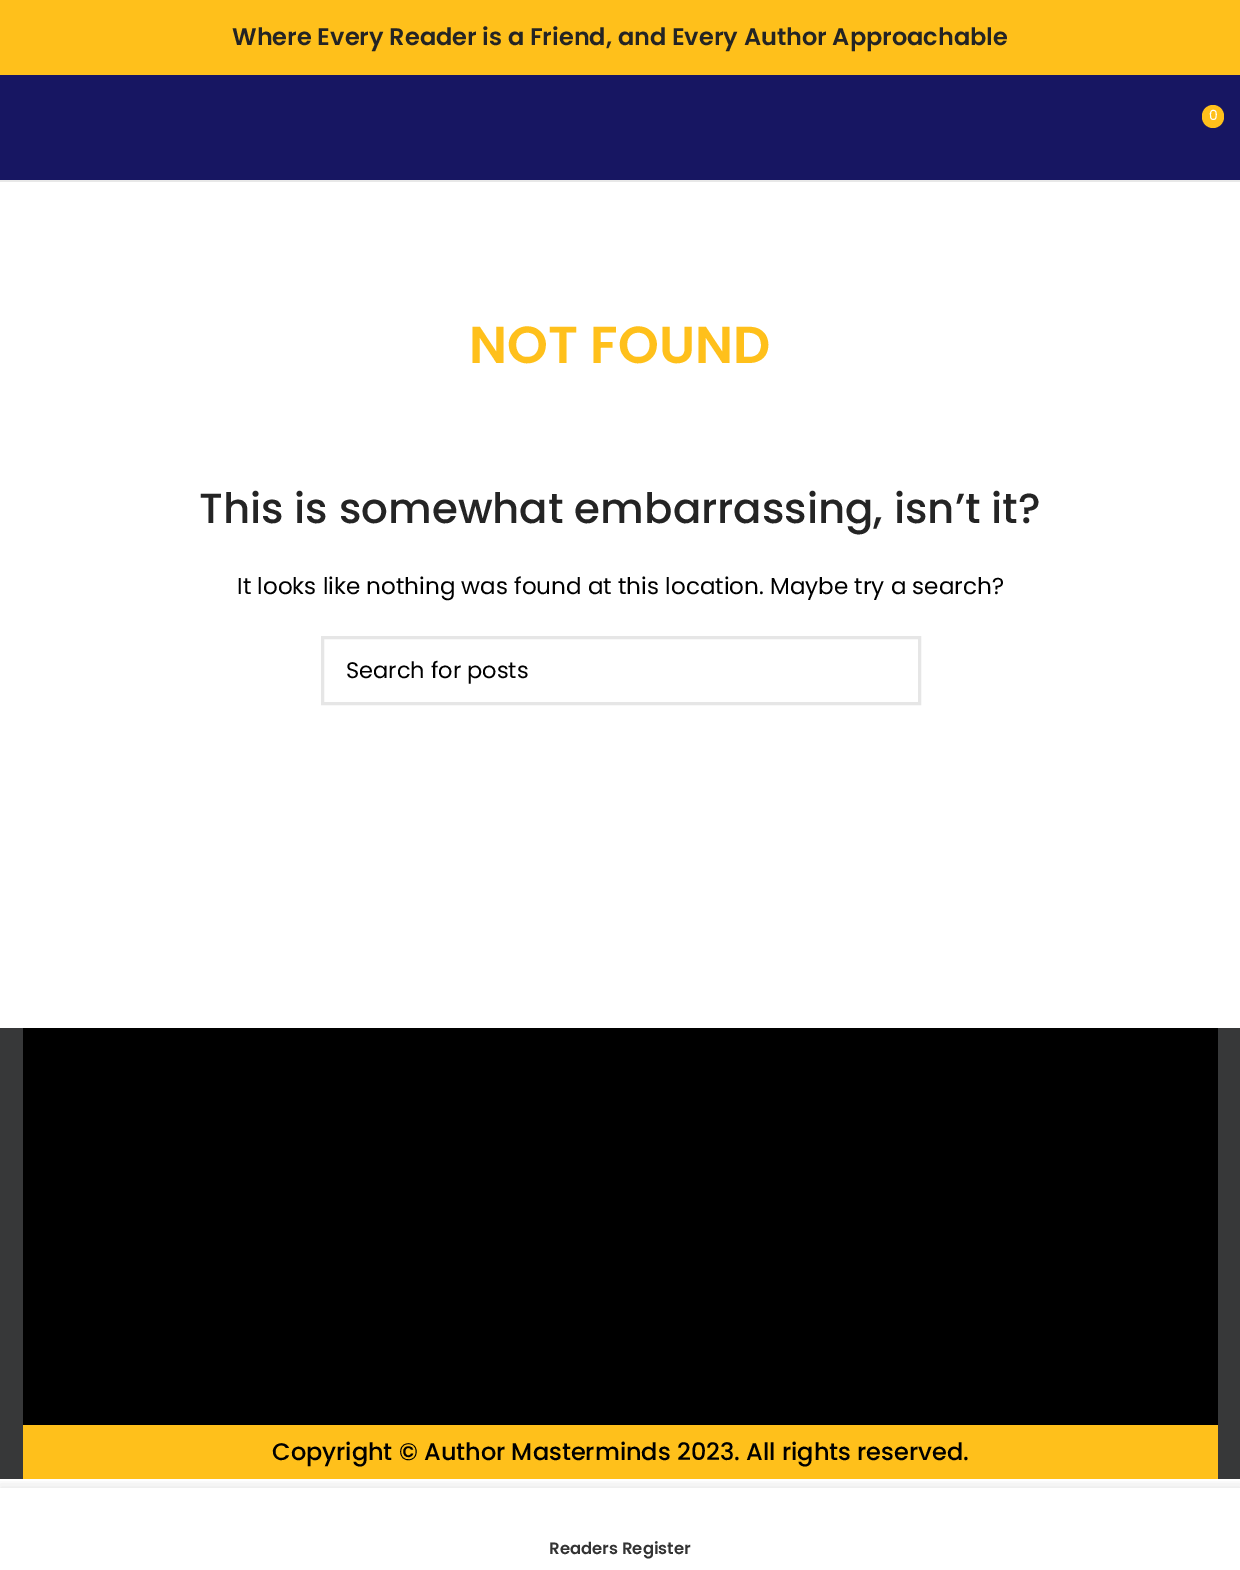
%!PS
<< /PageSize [1240 1570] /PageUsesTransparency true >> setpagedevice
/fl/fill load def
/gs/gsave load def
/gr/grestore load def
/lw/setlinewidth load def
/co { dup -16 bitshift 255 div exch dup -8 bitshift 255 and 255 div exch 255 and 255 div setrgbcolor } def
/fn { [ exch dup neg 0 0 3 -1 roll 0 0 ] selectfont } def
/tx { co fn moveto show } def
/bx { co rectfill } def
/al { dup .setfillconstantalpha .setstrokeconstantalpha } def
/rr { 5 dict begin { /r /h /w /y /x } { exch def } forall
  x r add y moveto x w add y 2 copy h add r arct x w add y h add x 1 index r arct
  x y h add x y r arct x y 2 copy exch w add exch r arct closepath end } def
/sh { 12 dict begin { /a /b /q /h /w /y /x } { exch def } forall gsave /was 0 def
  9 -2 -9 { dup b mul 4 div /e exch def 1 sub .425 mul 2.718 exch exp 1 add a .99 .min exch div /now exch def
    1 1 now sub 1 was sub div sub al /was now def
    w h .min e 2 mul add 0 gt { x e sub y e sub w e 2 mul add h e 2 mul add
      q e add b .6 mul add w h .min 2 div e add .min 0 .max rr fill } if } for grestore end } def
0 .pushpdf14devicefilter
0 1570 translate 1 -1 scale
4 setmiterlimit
0 0 1240 1570 16#FFFFFF bx
0 0 1240 75 16#FFC01B bx
0 75 1240 105 16#171662 bx
0 180 1240 2 16#E8E8E8 bx
16#FFC01B co
1202 105 22 23 11 rr fl
16#E6E6E6 co
3 lw
322.5 637.5 597 66 rectstroke
0 1028 1240 451 16#373839 bx
23 1028 1195 397 16#000000 bx
23 1425 1195 54 16#FFC01B bx
gs
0 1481 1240 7 rectclip
16#000000 co
0 1488 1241 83 0 7 .12 sh
gr
(Where Every Reader is a Friend, and Every Author Approachable) 232 45 /Poppins-SemiBold 24 16#242424 tx
(0) 1209 120 /Poppins-Regular 14 16#FFFFFF tx
(NOT FOUND) 469 363 /Poppins-SemiBold 52 16#FFC01B tx
(This is somewhat embarrassing, isn’t it?) 199 523 /Poppins-Medium 42 16#242424 tx
(It looks like nothing was found at this location. Maybe try a search?) 237 594 /Poppins-Regular 23.1 16#000000 tx
(Search for posts) 346 678 /Poppins-Regular 22.5 16#000000 tx
(Copyright © Author Masterminds 2023. All rights reserved.) 272 1460 /Poppins-Medium 24 16#000000 tx
(Readers Register) 549 1554 /Poppins-SemiBold 16.5 16#333333 tx
.poppdf14devicefilter showpage
